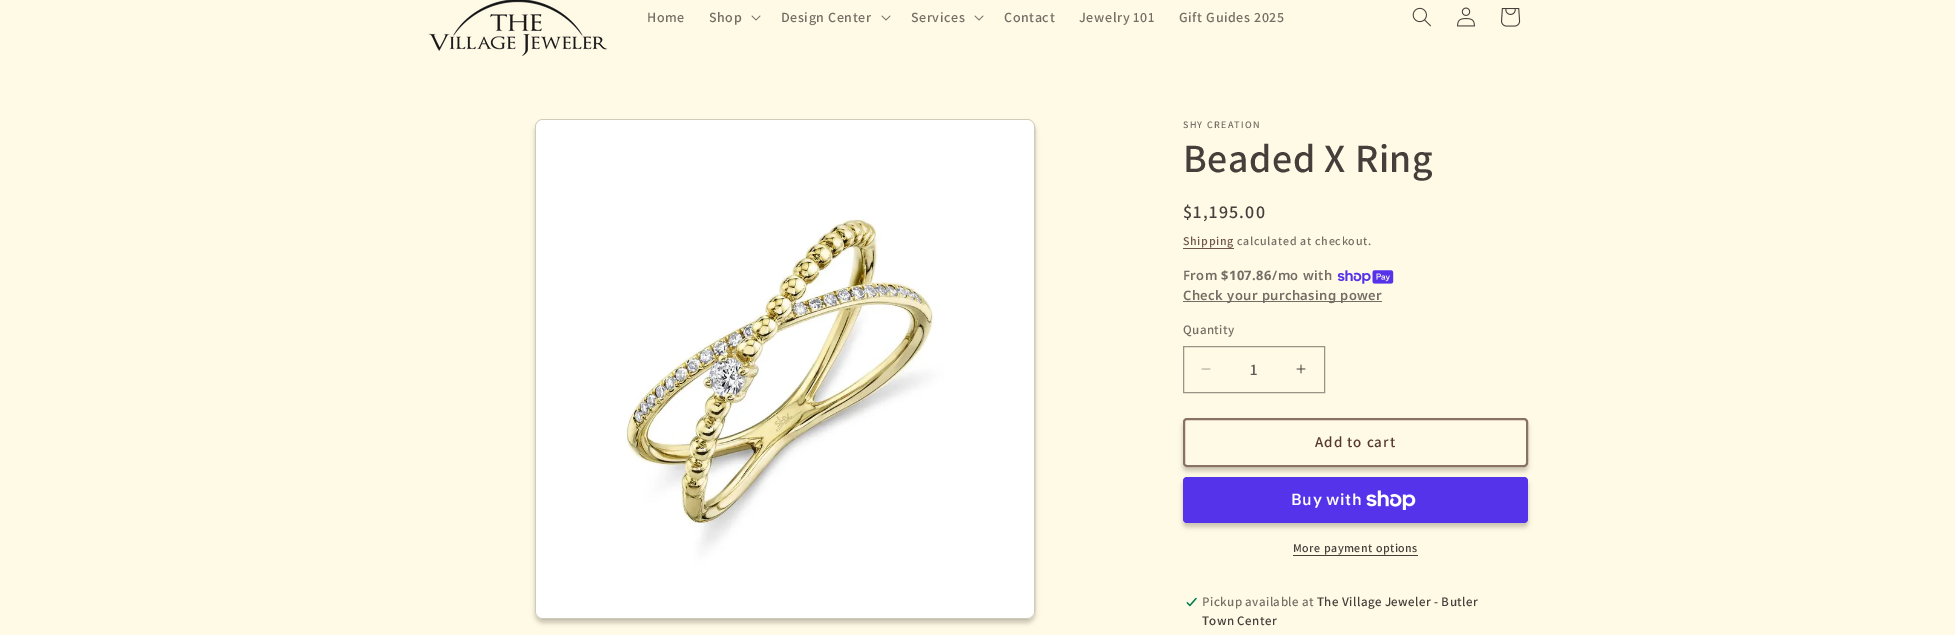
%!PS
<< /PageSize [1955 635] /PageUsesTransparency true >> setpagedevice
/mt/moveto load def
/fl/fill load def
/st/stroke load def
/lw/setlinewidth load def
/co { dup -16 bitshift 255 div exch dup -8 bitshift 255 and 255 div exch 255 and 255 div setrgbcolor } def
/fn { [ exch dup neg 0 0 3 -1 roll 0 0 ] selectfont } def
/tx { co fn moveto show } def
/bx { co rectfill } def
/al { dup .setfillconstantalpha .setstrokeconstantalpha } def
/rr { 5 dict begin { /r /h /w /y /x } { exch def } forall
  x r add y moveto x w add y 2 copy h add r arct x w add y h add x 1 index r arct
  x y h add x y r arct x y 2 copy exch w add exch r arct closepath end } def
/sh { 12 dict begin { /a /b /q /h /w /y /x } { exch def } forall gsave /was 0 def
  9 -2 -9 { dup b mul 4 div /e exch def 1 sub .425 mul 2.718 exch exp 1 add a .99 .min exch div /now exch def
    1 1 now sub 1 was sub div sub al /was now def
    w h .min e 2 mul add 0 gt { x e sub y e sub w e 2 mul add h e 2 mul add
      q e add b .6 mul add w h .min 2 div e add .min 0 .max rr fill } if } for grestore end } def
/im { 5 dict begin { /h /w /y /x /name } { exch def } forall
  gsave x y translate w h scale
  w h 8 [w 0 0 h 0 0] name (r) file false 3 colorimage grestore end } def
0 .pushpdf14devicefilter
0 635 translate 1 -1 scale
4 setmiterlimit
0 0 1955 635 16#FFFAE5 bx
(media/1.raw) 428 0 180 56 im
(media/2.raw) 751 15 10 6 im
(media/2.raw) 881 15 10 6 im
(media/2.raw) 974 15 10 6 im
(media/3.raw) 1412 7 19 20 im
(media/4.raw) 1457 7 18 20 im
(media/5.raw) 1501 8 20 19 im
16#453E3B co
535 123 500 500 8 2.5 .3 sh
16#FFFAE5 co
535 119 500 500 8 rr fl
0.25 al
16#453E3B co
535.5 119.5 499 499 7.5 rr st
1 al
(media/6.raw) 536 120 498 498 im
1183 248 51 1 16#6F5549 bx
(media/7.raw) 1337 270 57 14 im
1183 301 199 1 16#746D66 bx
(media/8.raw) 1201 368 10 2 im
(media/9.raw) 1296 364 10 10 im
16#999388 co
1183.5 346.5 141 46 rectstroke
16#453E3B co
1183 422 345 49 4 2.5 .3 sh
16#FFFAE5 co
1183 418 345 49 4 rr fl
2 lw
1184 419 343 47 3 rr st
16#897264 co
1184 419 343 47 3 rr st
16#453E3B co
1183 481 345 46 4 2.5 .3 sh
16#5433EB co
1183 477 345 46 4 rr fl
(media/10.raw) 1366 490 50 20 im
1293 555 125 1 16#453E3B bx
(media/11.raw) 1185 597 13 10 im
/Assistant-SemiBold 14 fn
16#746D66 co
647 22 mt .6 0 (Home) ashow
709 22 mt .6 0 (Shop) ashow
781 22 mt .6 0 (Design Center) ashow
911 22 mt .6 0 (Services) ashow
1004 22 mt .6 0 (Contact) ashow
1079 22 mt .6 0 (Jewelry 101) ashow
1179 22 mt .6 0 (Gift Guides 2025) ashow
/Assistant-SemiBold 10 fn
1183 128 mt 1.25 0 (SHY CREATION) ashow
/Assistant-SemiBold 40 fn
16#453E3B co
1183 172 mt .6 0 (Beaded X Ring) ashow
/Assistant-SemiBold 18 fn
1183 218 mt 1.25 0 ($1,195.00) ashow
/Assistant-SemiBold 12 fn
16#6F5549 co
1183 245 mt .7 0 (Shipping) ashow
16#746D66 co
1237 245 mt .7 0 (calculated at checkout.) ashow
/NotoSans-SemiBold 13 fn
1183 280 mt .4 0 (From) ashow
/NotoSans-Bold 13 fn
1221 280 mt .4 0 ($107.86) ashow
/NotoSans-SemiBold 13 fn
1272 280 mt .4 0 (/mo with) ashow
1183 300 mt .4 0 (Check your purchasing power) ashow
/Assistant-SemiBold 13 fn
1183 334 mt .4 0 (Quantity) ashow
(1) 1250 375 /Assistant-SemiBold 16 16#615A55 tx
/Assistant-SemiBold 15 fn
16#56382D co
1315 447 mt 1 0 (Add to cart) ashow
/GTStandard-SemiBold 16 fn
16#FFFFFF co
1291 505 mt .6 0 (Buy with) ashow
/Assistant-SemiBold 12 fn
16#453E3B co
1293 552 mt .5 0 (More payment options) ashow
/Assistant-SemiBold 13 fn
16#746D66 co
1202 606 mt .4 0 (Pickup available at) ashow
16#453E3B co
1317 606 mt .4 0 (The Village Jeweler - Butler) ashow
1202 625 mt .4 0 (Town Center) ashow
.poppdf14devicefilter showpage
